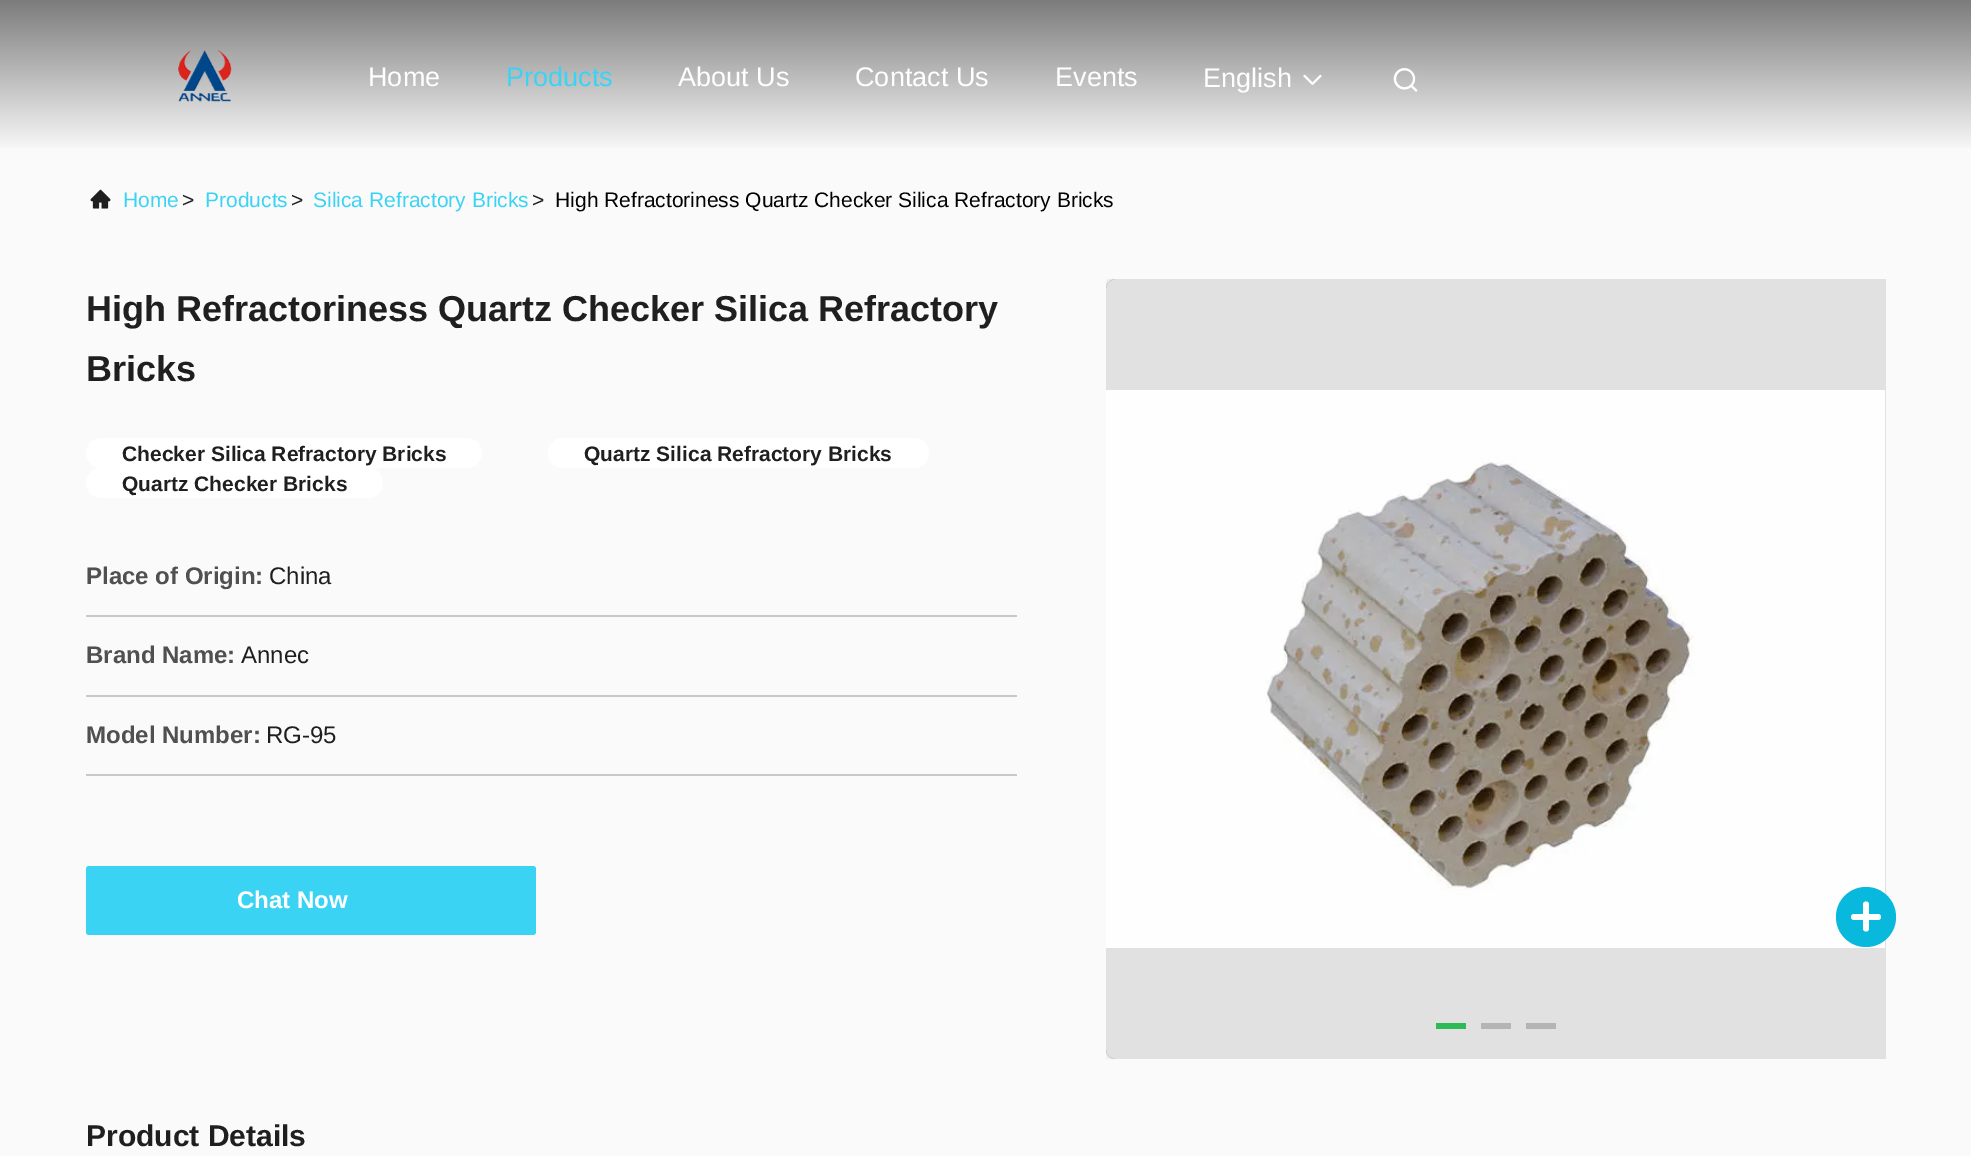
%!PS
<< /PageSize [1971 1156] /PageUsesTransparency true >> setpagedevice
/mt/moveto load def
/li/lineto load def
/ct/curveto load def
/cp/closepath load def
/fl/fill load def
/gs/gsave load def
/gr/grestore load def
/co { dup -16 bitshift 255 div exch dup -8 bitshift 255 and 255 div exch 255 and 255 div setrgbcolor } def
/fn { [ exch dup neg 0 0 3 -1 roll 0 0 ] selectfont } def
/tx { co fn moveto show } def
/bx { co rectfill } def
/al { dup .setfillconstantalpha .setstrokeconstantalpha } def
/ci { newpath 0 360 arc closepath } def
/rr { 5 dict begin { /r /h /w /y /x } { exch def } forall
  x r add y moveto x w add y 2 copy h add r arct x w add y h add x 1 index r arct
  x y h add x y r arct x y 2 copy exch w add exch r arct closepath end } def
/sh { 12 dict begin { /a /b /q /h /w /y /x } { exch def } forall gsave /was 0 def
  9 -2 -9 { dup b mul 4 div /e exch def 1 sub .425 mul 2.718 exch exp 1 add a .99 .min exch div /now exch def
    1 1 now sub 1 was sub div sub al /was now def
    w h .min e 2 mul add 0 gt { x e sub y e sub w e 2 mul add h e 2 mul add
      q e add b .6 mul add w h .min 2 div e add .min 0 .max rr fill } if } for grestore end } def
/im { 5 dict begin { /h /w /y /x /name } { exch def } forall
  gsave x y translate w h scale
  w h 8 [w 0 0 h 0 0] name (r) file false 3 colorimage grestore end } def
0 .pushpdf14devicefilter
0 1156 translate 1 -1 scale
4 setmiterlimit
0 0 1971 1156 16#FAFAFA bx
gs 0 0 mt 1971 0 li 1971 148 li 0 148 li cp clip newpath
<< /ShadingType 2 /ColorSpace /DeviceRGB /Coords [986 0 986 150] /Extend [true true] /Function << /FunctionType 2 /Domain [0 1] /C0 [.486 .486 .486] /C1 [.976 .976 .976] /N 1 >> >> shfill gr
(media/1.raw) 178 49 54 53 im
(media/2.raw) 1303 74 19 11 im
(media/3.raw) 1393 68 25 24 im
(media/4.raw) 90 189 21 20 im
16#FFFFFF co
86 438 396 30 15 rr fl
548 438 381 30 15 rr fl
86 468 297 30 15 rr fl
86 615 931 2 16#C8C8C8 bx
86 695 931 2 16#C8C8C8 bx
86 774 931 2 16#C8C8C8 bx
16#3BD3F4 co
86 866 450 69 3 rr fl
gs
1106 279 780 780 rectclip
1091 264 mt 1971 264 li 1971 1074 li 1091 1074 li cp 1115 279 mt 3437 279 li 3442 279 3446 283 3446 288 ct 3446 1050 li 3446 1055 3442 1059 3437 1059 ct 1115 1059 li 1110 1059 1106 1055 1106 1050 ct 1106 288 li 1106 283 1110 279 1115 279 ct cp eoclip newpath
16#000000 co
1106 279 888 780 9 4.5 .15 sh
gr
0.1 al
16#000000 co
1115 279 mt 1886 279 li 1886 1059 li 1115 1059 li 1110 1059 1106 1055 1106 1050 ct 1106 288 li 1106 283 1110 279 1115 279 ct cp fl
1 al
(media/5.raw) 1106 390 779 558 im
1436 1023 30 6 16#2EBB55 bx
1481 1023 30 6 16#B4B4B4 bx
1526 1023 30 6 16#B4B4B4 bx
16#08B8DD co
1866 917 30 ci fl
16#FFFFFF co
1851 914 30 6 3 rr fl
1869 904.5 mt 1869 928.5 li 1869 930 1867.5 931.5 1866 931.5 ct 1864.5 931.5 1863 930 1863 928.5 ct 1863 904.5 li 1863 903 1864.5 901.5 1866 901.5 ct 1867.5 901.5 1869 903 1869 904.5 ct cp fl
(Home) 368 86 /LiberationSans-Regular 27 16#FFFFFF tx
(Products) 506 86 /LiberationSans-Regular 27 16#3BD3F4 tx
(About Us) 678 86 /LiberationSans-Regular 27 16#FFFFFF tx
(Contact Us) 855 86 /LiberationSans-Regular 27 16#FFFFFF tx
(Events) 1055 86 /LiberationSans-Regular 27 16#FFFFFF tx
(English) 1203 87 /LiberationSans-Regular 27 16#FFFFFF tx
(Home) 123 207 /LiberationSans-Regular 21 16#3BD3F4 tx
(>) 182 207 /LiberationSans-Regular 21 16#1F1F1F tx
(Products) 205 207 /LiberationSans-Regular 21 16#3BD3F4 tx
(>) 291 207 /LiberationSans-Regular 21 16#1F1F1F tx
(Silica Refractory Bricks) 313 207 /LiberationSans-Regular 21 16#3BD3F4 tx
(>) 532 207 /LiberationSans-Regular 21 16#1F1F1F tx
(High Refractoriness Quartz Checker Silica Refractory Bricks) 555 207 /LiberationSans-Regular 21 16#000000 tx
(High Refractoriness Quartz Checker Silica Refractory) 86 321 /LiberationSans-Bold 36 16#1F1F1F tx
(Bricks) 86 381 /LiberationSans-Bold 36 16#1F1F1F tx
(Checker Silica Refractory Bricks) 122 461 /LiberationSans-Bold 21 16#1F1F1F tx
(Quartz Silica Refractory Bricks) 584 461 /LiberationSans-Bold 21 16#1F1F1F tx
(Quartz Checker Bricks) 122 491 /LiberationSans-Bold 21 16#1F1F1F tx
(Place of Origin:) 86 584 /LiberationSans-Bold 24 16#505050 tx
(China) 269 584 /LiberationSans-Regular 24 16#1F1F1F tx
(Brand Name:) 86 663 /LiberationSans-Bold 24 16#505050 tx
(Annec) 241 663 /LiberationSans-Regular 24 16#1F1F1F tx
(Model Number:) 86 743 /LiberationSans-Bold 24 16#505050 tx
(RG-95) 266 743 /LiberationSans-Regular 24 16#1F1F1F tx
(Chat Now) 237 908 /LiberationSans-Bold 24 16#FFFFFF tx
(Product Details) 86 1146 /LiberationSans-Bold 30 16#1F1F1F tx
.poppdf14devicefilter showpage
